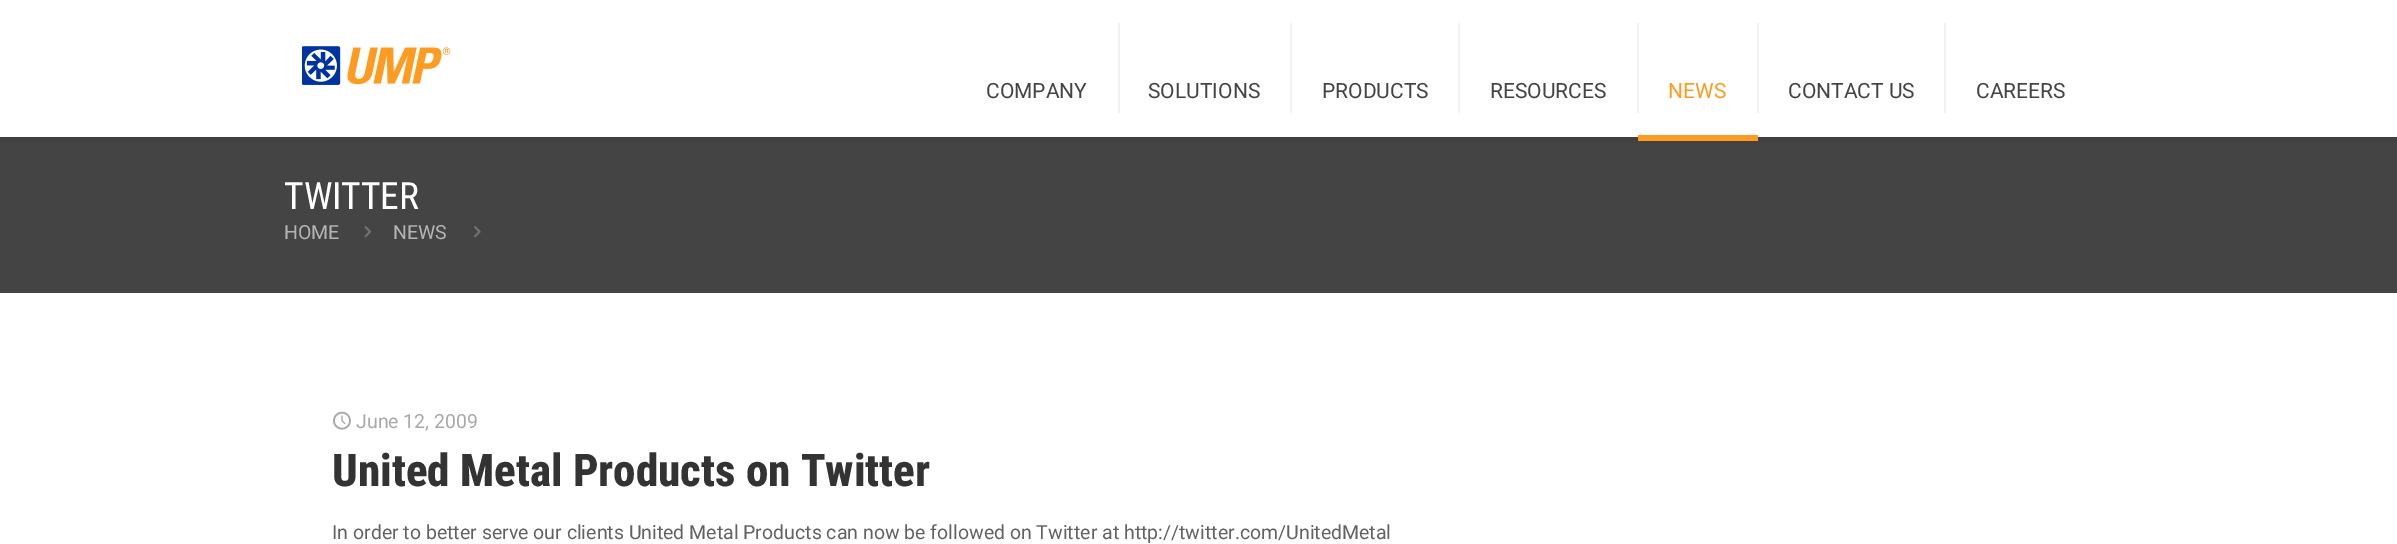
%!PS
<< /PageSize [2397 544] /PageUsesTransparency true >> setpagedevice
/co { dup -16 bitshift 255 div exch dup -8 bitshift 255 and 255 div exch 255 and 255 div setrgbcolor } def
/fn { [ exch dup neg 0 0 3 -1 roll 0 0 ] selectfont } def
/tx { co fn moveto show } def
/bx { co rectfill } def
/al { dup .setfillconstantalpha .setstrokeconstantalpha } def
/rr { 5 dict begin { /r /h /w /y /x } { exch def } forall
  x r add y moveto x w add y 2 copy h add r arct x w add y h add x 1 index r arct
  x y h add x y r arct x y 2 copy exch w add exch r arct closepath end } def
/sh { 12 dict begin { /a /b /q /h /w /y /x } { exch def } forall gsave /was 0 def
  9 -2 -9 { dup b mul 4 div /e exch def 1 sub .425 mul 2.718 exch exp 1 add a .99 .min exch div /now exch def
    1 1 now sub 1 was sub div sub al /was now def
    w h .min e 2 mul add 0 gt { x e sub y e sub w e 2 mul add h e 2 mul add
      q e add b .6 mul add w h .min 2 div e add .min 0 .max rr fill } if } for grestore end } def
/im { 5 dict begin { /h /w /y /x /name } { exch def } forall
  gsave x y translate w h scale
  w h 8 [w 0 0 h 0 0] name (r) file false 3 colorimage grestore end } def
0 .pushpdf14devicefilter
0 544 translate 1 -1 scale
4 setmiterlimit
0 0 2397 544 16#FFFFFF bx
0 137 2397 156 16#444444 bx
16#000000 co
0 3 2397 137 0 4 .1 sh
0 0 2397 137 16#FFFFFF bx
(media/1.raw) 302 46 149 39 im
1118 23 2 90 16#F2F2F2 bx
1290 23 2 90 16#F2F2F2 bx
1458 23 2 90 16#F2F2F2 bx
1637 23 2 90 16#F2F2F2 bx
1757 23 2 90 16#F2F2F2 bx
1638 135 120 6 16#FF9B20 bx
1944 23 2 90 16#F2F2F2 bx
(media/2.raw) 364 226 7 12 im
(media/3.raw) 474 226 7 12 im
(media/4.raw) 333 411 18 19 im
(COMPANY) 986 98 /Roboto-Regular 21 16#444444 tx
(SOLUTIONS) 1148 98 /Roboto-Regular 21 16#444444 tx
(PRODUCTS) 1322 98 /Roboto-Regular 21 16#444444 tx
(RESOURCES) 1490 98 /Roboto-Regular 21 16#444444 tx
(NEWS) 1668 98 /Roboto-Regular 21 16#FF9B20 tx
(CONTACT US) 1788 98 /Roboto-Regular 21 16#444444 tx
(CAREERS) 1976 98 /Roboto-Regular 21 16#444444 tx
(TWITTER) 284 209 /RobotoCondensed-Regular 37.5 16#FFFFFF tx
(HOME) 284 239 /Roboto-Regular 19.5 16#B4B4B4 tx
(NEWS) 393 239 /Roboto-Regular 19.5 16#B4B4B4 tx
(June 12, 2009) 356 428 /Roboto-Regular 19.5 16#A8A8A8 tx
(United Metal Products on Twitter) 332 486 /RobotoCondensed-ExtraBold 45 16#333333 tx
(In order to better serve our clients United Metal Products can now be followed on Twitter at http://twitter.com/UnitedMetal) 332 539 /Roboto-Regular 19.5 16#626262 tx
.poppdf14devicefilter showpage
